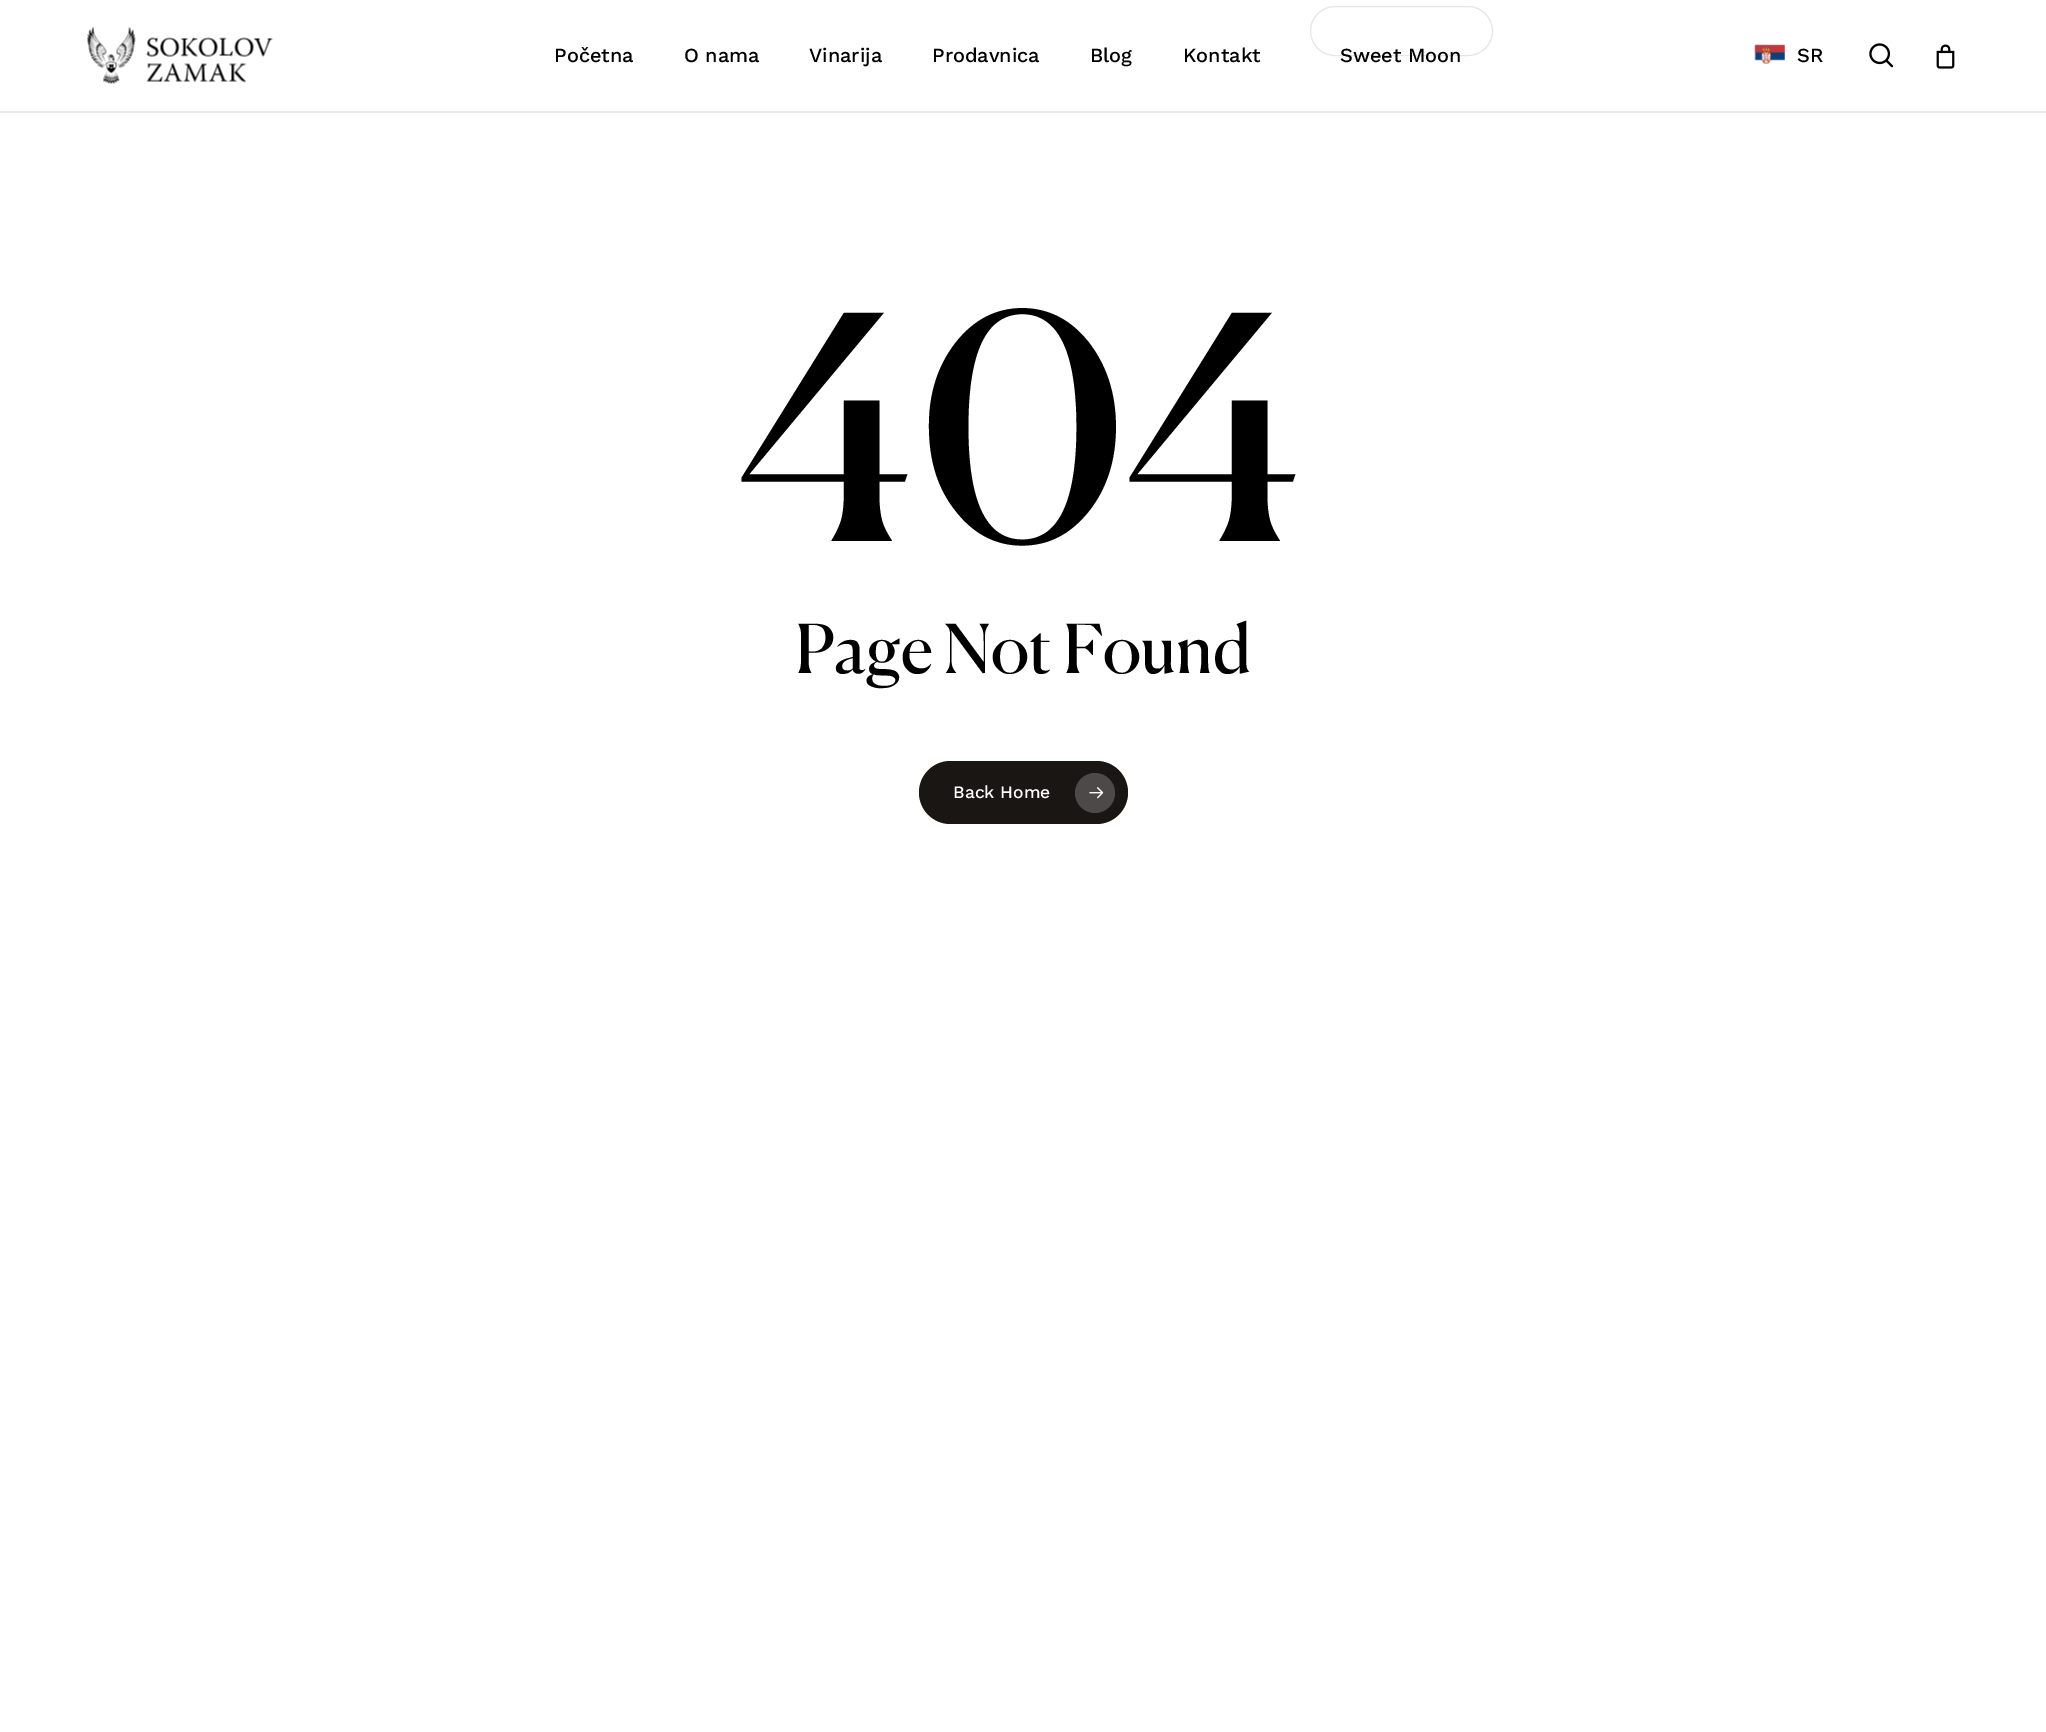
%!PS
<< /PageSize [2046 1732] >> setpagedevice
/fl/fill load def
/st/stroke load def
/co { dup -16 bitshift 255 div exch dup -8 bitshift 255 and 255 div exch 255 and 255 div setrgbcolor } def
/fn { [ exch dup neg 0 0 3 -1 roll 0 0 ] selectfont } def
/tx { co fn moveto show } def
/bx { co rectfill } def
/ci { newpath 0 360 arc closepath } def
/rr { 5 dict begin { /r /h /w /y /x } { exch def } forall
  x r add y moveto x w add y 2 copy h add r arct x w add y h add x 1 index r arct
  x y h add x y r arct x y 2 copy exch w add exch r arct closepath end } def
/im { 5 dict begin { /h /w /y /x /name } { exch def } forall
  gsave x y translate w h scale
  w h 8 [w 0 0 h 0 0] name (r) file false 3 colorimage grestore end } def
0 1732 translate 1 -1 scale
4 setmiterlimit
0 0 2046 1732 16#FFFFFF bx
0 111 2046 2 16#EBEBEB bx
(media/1.raw) 87 27 186 57 im
16#E6E6E6 co
1310.5 6.5 182 49 24.5 rr st
(media/2.raw) 1754 44 31 20 im
(media/3.raw) 1869 43 25 25 im
(media/4.raw) 1936 44 19 25 im
16#191614 co
919 761 209 63 31.5 rr fl
16#4C4948 co
1095 793 20 ci fl
(media/5.raw) 1089 787 15 12 im
(Početna) 554 62 /WorkSans-Medium 20 16#000000 tx
(O nama) 684 62 /WorkSans-Medium 20 16#000000 tx
(Vinarija) 809 62 /WorkSans-Medium 20 16#000000 tx
(Prodavnica) 932 62 /WorkSans-Medium 20 16#000000 tx
(Blog) 1090 62 /WorkSans-Medium 20 16#000000 tx
(Kontakt) 1183 62 /WorkSans-Medium 20 16#000000 tx
(Sweet Moon) 1340 62 /WorkSans-Medium 20 16#000000 tx
(SR) 1797 62 /WorkSans-Medium 20 16#000000 tx
(404) 740 541 /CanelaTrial-Regular 312 16#000000 tx
(Page Not Found) 795 673 /CanelaTrial-Regular 67.5 16#000000 tx
(Back Home) 953 798 /WorkSans-Medium 17.5 16#FFFFFF tx
showpage
